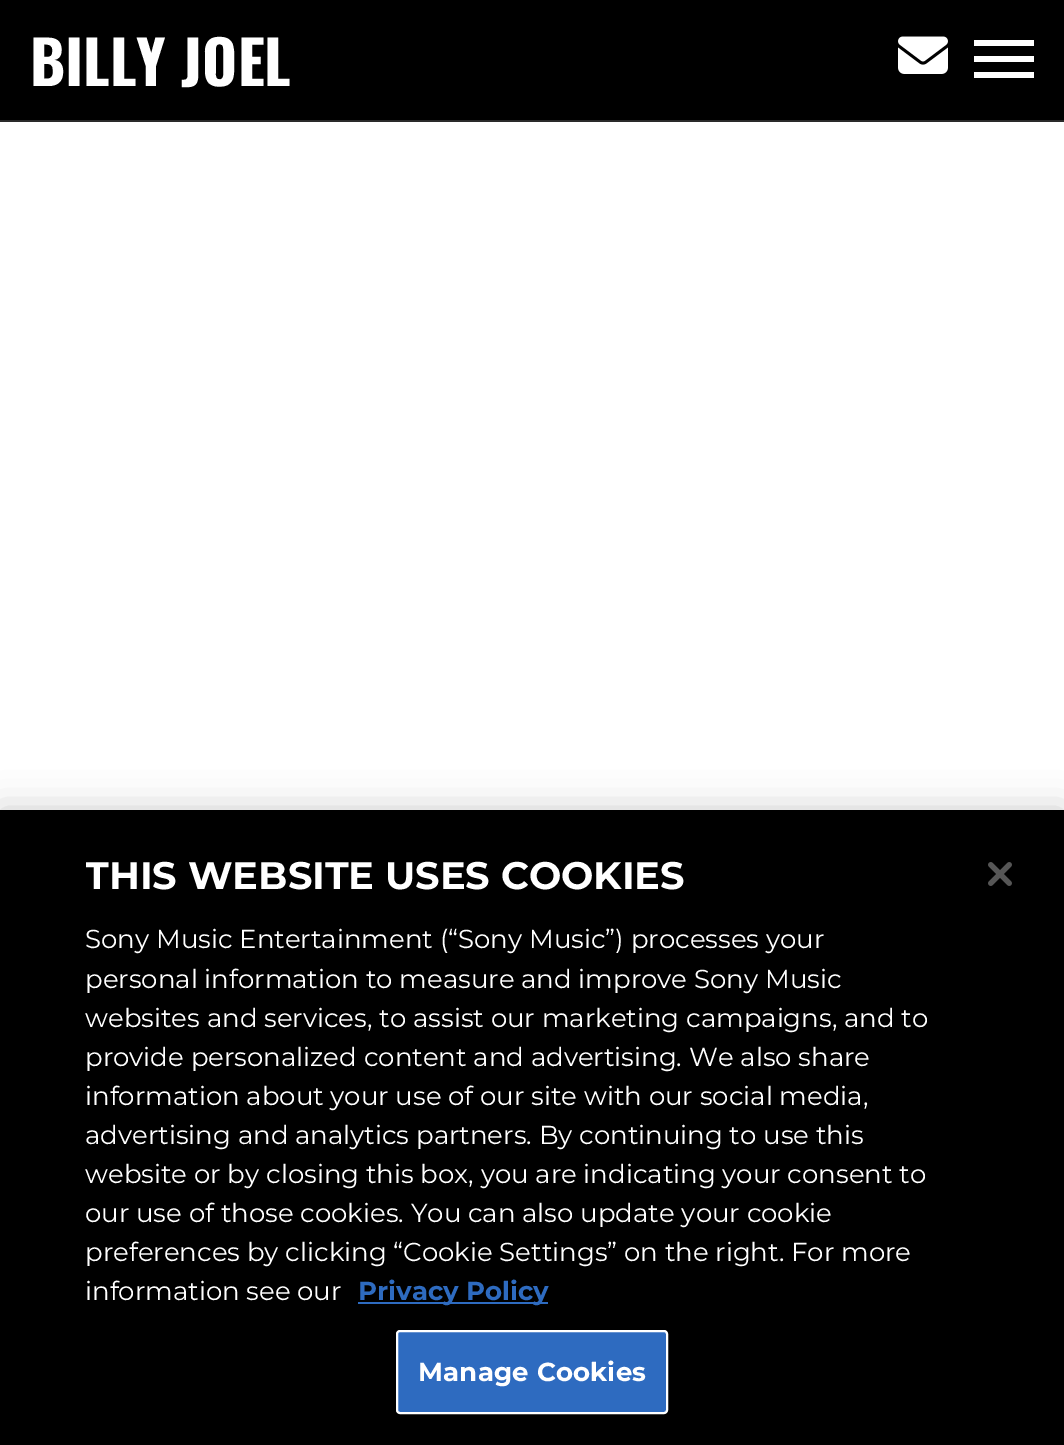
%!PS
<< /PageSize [1064 1445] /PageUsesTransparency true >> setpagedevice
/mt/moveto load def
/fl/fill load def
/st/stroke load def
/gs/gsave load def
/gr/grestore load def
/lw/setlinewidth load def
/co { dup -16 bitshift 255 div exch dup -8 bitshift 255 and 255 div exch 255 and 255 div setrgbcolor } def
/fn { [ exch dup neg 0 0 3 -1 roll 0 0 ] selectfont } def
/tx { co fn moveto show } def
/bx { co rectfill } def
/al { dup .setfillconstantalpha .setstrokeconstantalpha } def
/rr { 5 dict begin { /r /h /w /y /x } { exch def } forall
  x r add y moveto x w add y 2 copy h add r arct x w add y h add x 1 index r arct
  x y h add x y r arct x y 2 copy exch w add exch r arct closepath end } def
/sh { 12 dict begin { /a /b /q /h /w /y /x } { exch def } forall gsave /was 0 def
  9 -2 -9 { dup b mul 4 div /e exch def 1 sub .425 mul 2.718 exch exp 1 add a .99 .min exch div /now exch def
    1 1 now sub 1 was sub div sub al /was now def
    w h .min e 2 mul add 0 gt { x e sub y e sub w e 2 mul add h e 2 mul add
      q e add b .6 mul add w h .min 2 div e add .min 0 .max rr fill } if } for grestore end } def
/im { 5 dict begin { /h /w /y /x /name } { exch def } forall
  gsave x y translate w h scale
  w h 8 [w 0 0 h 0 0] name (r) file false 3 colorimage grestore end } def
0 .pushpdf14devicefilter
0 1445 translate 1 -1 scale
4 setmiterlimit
0 0 1064 1445 16#FFFFFF bx
0 0 1064 120 16#000000 bx
0 120 1064 2 16#2A2A2A bx
(media/1.raw) 898 36 50 38 im
974 40 60 6 16#FFFFFF bx
974 56 60 6 16#FFFFFF bx
974 72 60 6 16#FFFFFF bx
16#000000 co
0 810 1064 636 0 18 .2 sh
0 810 1064 635 16#000000 bx
358 1302 190 2 16#2E6BC0 bx
397 1331 270 82 3 rr gs fl gr
16#FFFFFF co
2 lw
st
(media/2.raw) 988 862 24 24 im
(BILLY JOEL) 30 86 /Oswald-Bold 60 16#FFFFFF tx
gs
86 850 844 460 rectclip
(THIS WEBSITE USES COOKIES) 85 889 /Montserrat-Bold 38.4 16#FFFFFF tx
gr
(Sony Music Entertainment \(“Sony Music”\) processes your) 85 948 /Montserrat-Regular 26 16#FFFFFF tx
(personal information to measure and improve Sony Music) 85 988 /Montserrat-Regular 26 16#FFFFFF tx
(websites and services, to assist our marketing campaigns, and to) 85 1027 /Montserrat-Regular 26 16#FFFFFF tx
(provide personalized content and advertising. We also share) 85 1066 /Montserrat-Regular 26 16#FFFFFF tx
(information about your use of our site with our social media,) 85 1105 /Montserrat-Regular 26 16#FFFFFF tx
(advertising and analytics partners. By continuing to use this) 85 1144 /Montserrat-Regular 26 16#FFFFFF tx
(website or by closing this box, you are indicating your consent to) 85 1183 /Montserrat-Regular 26 16#FFFFFF tx
(our use of those cookies. You can also update your cookie) 85 1222 /Montserrat-Regular 26 16#FFFFFF tx
(preferences by clicking “Cookie Settings” on the right. For more) 85 1261 /Montserrat-Regular 26 16#FFFFFF tx
(information see our) 85 1300 /Montserrat-Regular 26 16#FFFFFF tx
(Privacy Policy) 358 1300 /Montserrat-Bold 26 16#2E6BC0 tx
16#FFFFFF co
418 1381 mt .25 0 (Manage Cookies) ashow
.poppdf14devicefilter showpage
